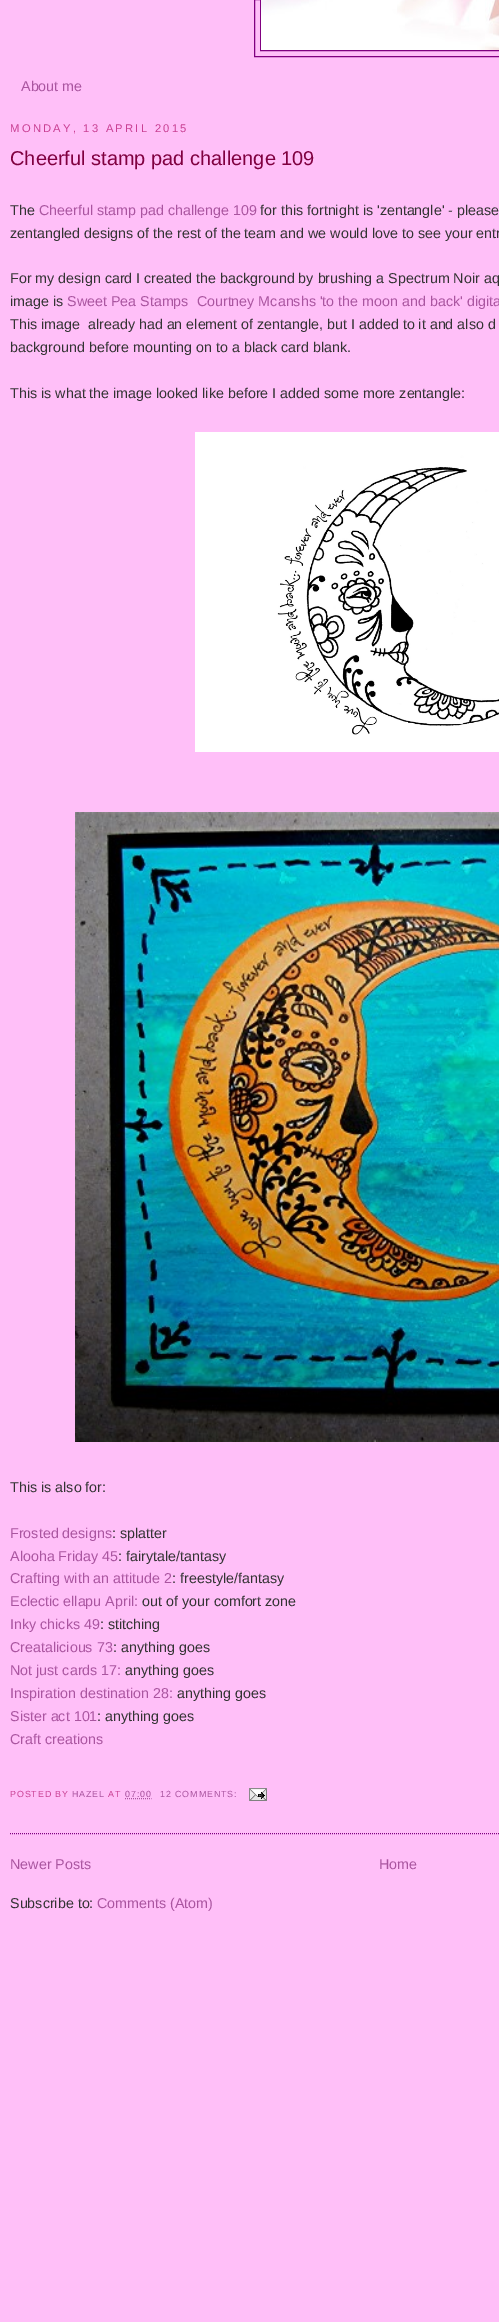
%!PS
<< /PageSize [499 2322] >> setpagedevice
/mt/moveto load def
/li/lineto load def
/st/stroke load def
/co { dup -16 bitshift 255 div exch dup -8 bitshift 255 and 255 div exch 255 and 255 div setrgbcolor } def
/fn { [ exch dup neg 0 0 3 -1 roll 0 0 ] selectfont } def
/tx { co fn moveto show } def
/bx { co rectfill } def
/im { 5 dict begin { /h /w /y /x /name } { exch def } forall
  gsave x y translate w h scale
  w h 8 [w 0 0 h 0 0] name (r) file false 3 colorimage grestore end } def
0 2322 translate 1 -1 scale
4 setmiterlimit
0 0 499 2322 16#FFBFF8 bx
16#800080 co
254.5 -.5 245 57 rectstroke
260.5 -.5 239 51 rectstroke
(media/1.raw) 261 0 238 50 im
[1 1] 0 setdash
10 1833.5 mt 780 1833.5 li st
(media/2.raw) 195 432 304 320 im
(media/3.raw) 75 812 424 630 im
16#AA55A0 co
125 1798.5 mt 151.5 1798.5 li st
(media/4.raw) 249 1788 18 13 im
(About me) 21 91 /LiberationSans-Regular 14.3 16#AA55A0 tx
/LiberationSans-Regular 11.2 fn
16#C94093 co
10 132 mt 2.25 0 (MONDAY, 13 APRIL 2015) ashow
(Cheerful stamp pad challenge 109) 10 165 /LiberationSans-Regular 20 16#800040 tx
(The) 10 215 /LiberationSans-Regular 14.3 16#333333 tx
(Cheerful stamp pad challenge 109) 39 215 /LiberationSans-Regular 14.3 16#AA55A0 tx
(for this fortnight is 'zentangle' - please) 260 215 /LiberationSans-Regular 14.3 16#333333 tx
(zentangled designs of the rest of the team and we would love to see your entr) 10 238 /LiberationSans-Regular 14.3 16#333333 tx
(For my design card I created the background by brushing a Spectrum Noir aq) 10 283 /LiberationSans-Regular 14.3 16#333333 tx
(image is) 10 306 /LiberationSans-Regular 14.3 16#333333 tx
(Sweet Pea Stamps  Courtney Mcanshs 'to the moon and back' digita) 67 306 /LiberationSans-Regular 14.3 16#AA55A0 tx
(This image  already had an element of zentangle, but I added to it and also d) 10 329 /LiberationSans-Regular 14.3 16#333333 tx
(background before mounting on to a black card blank.) 10 352 /LiberationSans-Regular 14.3 16#333333 tx
(This is what the image looked like before I added some more zentangle:) 10 398 /LiberationSans-Regular 14.3 16#333333 tx
(This is also for:) 10 1492 /LiberationSans-Regular 14.3 16#333333 tx
(Frosted designs) 10 1538 /LiberationSans-Regular 14.3 16#AA55A0 tx
(: splatter) 112 1538 /LiberationSans-Regular 14.3 16#333333 tx
(Alooha Friday 45) 10 1561 /LiberationSans-Regular 14.3 16#AA55A0 tx
(: fairytale/tantasy) 118 1561 /LiberationSans-Regular 14.3 16#333333 tx
(Crafting with an attitude 2) 10 1583 /LiberationSans-Regular 14.3 16#AA55A0 tx
(: freestyle/fantasy) 172 1583 /LiberationSans-Regular 14.3 16#333333 tx
(Eclectic ellapu April:) 10 1606 /LiberationSans-Regular 14.3 16#AA55A0 tx
(out of your comfort zone) 142 1606 /LiberationSans-Regular 14.3 16#333333 tx
(Inky chicks 49) 10 1629 /LiberationSans-Regular 14.3 16#AA55A0 tx
(: stitching) 100 1629 /LiberationSans-Regular 14.3 16#333333 tx
(Creatalicious 73) 10 1652 /LiberationSans-Regular 14.3 16#AA55A0 tx
(: anything goes) 113 1652 /LiberationSans-Regular 14.3 16#333333 tx
(Not just cards 17:) 10 1675 /LiberationSans-Regular 14.3 16#AA55A0 tx
(anything goes) 125 1675 /LiberationSans-Regular 14.3 16#333333 tx
(Inspiration destination 28:) 10 1698 /LiberationSans-Regular 14.3 16#AA55A0 tx
(anything goes) 177 1698 /LiberationSans-Regular 14.3 16#333333 tx
(Sister act 101) 10 1721 /LiberationSans-Regular 14.3 16#AA55A0 tx
(: anything goes) 97 1721 /LiberationSans-Regular 14.3 16#333333 tx
(Craft creations) 10 1744 /LiberationSans-Regular 14.3 16#AA55A0 tx
/LiberationSans-Regular 8.9 fn
16#C94093 co
10 1797 mt .9 0 (POSTED BY) ashow
16#AA55A0 co
72 1797 mt .9 0 (HAZEL) ashow
16#C94093 co
108 1797 mt .9 0 (AT) ashow
16#AA55A0 co
125 1797 mt .9 0 (07:00) ashow
160 1797 mt .9 0 (12 COMMENTS:) ashow
(Newer Posts) 10 1869 /LiberationSans-Regular 14.3 16#AA55A0 tx
(Home) 379 1869 /LiberationSans-Regular 14.3 16#AA55A0 tx
(Subscribe to:) 10 1908 /LiberationSans-Regular 14.3 16#333333 tx
(Comments \(Atom\)) 97 1908 /LiberationSans-Regular 14.3 16#AA55A0 tx
showpage
